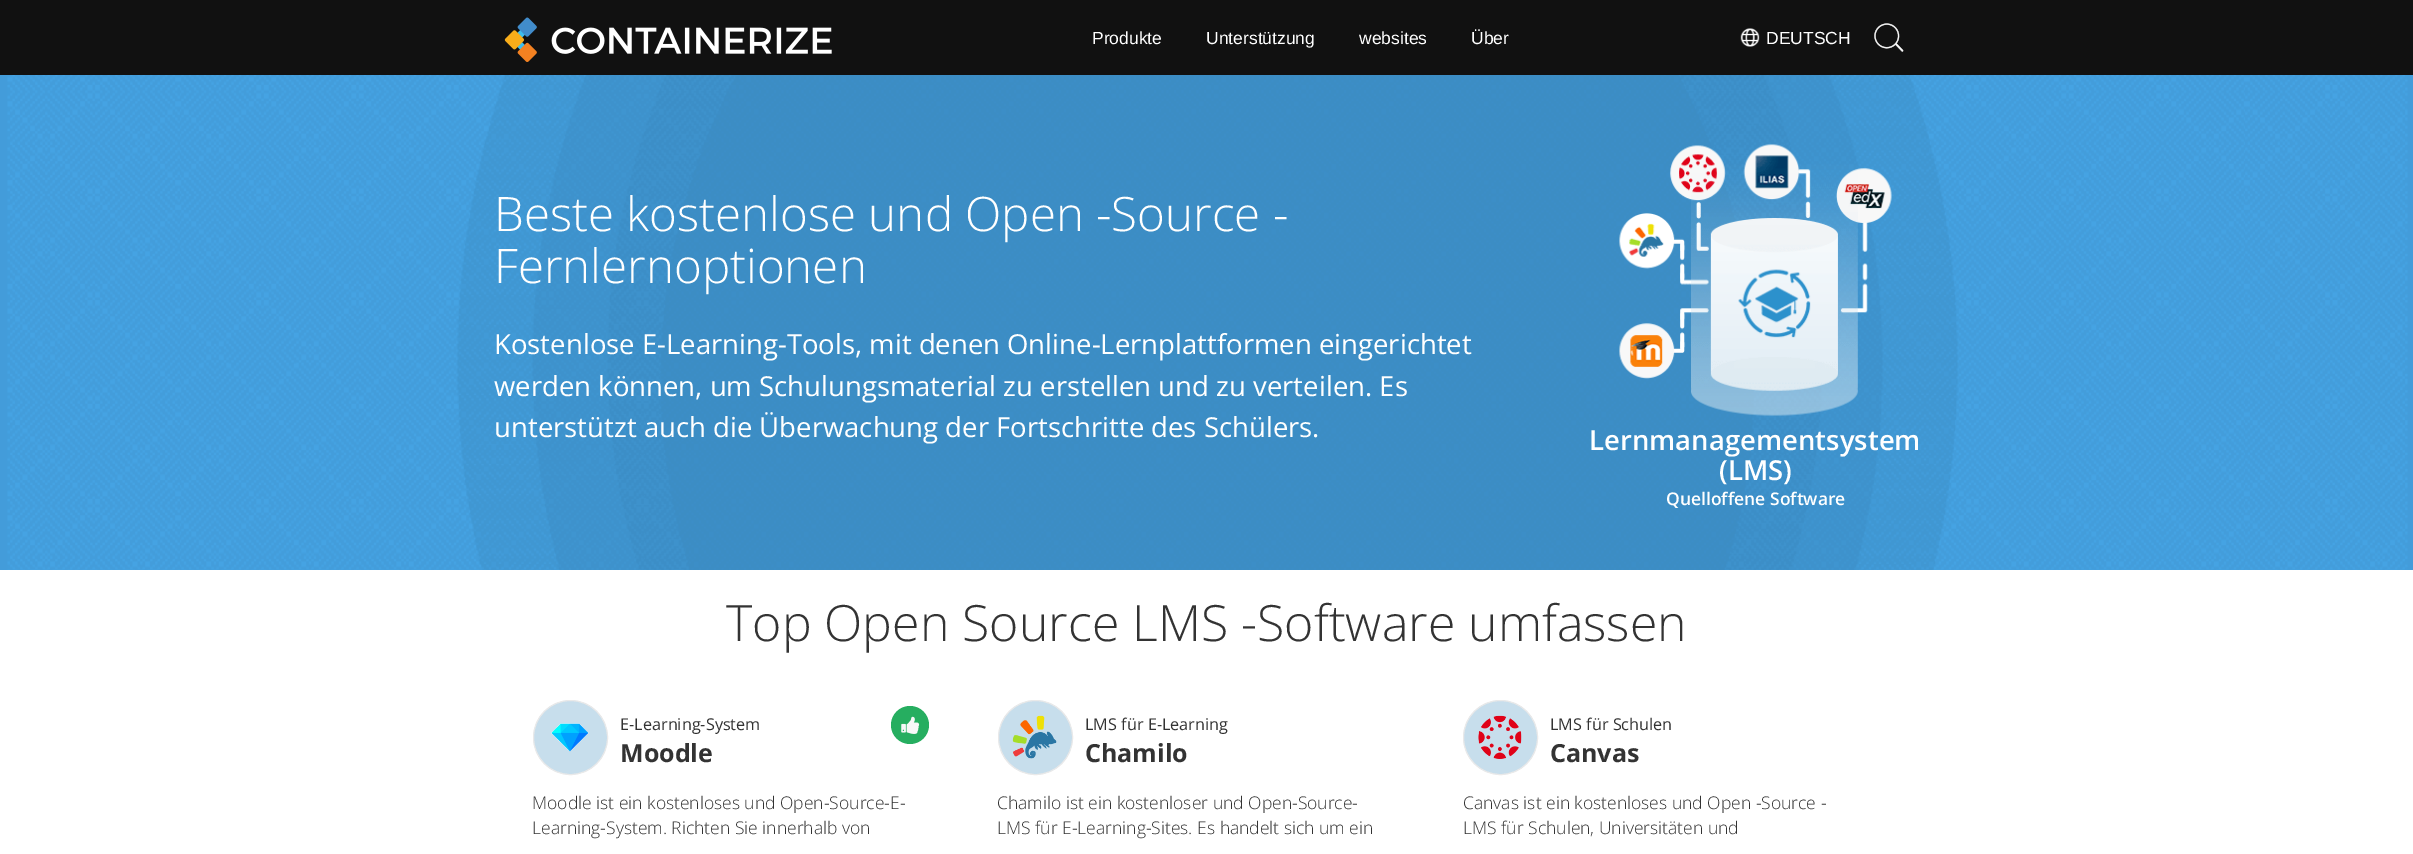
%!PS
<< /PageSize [2413 854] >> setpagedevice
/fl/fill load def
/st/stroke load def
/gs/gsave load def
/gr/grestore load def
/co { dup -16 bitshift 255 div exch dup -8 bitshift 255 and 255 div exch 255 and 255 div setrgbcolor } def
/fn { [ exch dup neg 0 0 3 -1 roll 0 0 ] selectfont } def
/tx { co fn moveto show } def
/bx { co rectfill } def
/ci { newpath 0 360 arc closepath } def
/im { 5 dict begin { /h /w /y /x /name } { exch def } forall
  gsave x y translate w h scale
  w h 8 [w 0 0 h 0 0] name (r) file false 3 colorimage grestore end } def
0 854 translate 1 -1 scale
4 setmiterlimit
0 0 2413 854 16#FFFFFF bx
0 0 2413 75 16#111111 bx
(media/1.raw) 504 17 328 45 im
(media/2.raw) 1740 28 20 19 im
(media/3.raw) 1874 23 30 29 im
0 75 2413 495 16#439CDA bx
(media/4.raw) 7 75 2401 495 im
(media/5.raw) 1619 144 273 272 im
16#C7DEEC co
570.5 737.5 37 ci gs fl gr
16#E9E9E9 co
st
(media/6.raw) 551 723 38 29 im
16#26AE60 co
910 725 19 ci fl
(media/7.raw) 901 716 19 18 im
16#C7DEEC co
1035.5 737.5 37 ci gs fl gr
16#E9E9E9 co
st
(media/8.raw) 1012 715 45 44 im
16#C7DEEC co
1500.5 737.5 37 ci gs fl gr
16#E9E9E9 co
st
(media/9.raw) 1478 715 44 44 im
(Produkte) 1092 44 /LiberationSans-Regular 17.5 16#FFFFFF tx
(Unterstützung) 1206 44 /LiberationSans-Regular 17.5 16#FFFFFF tx
(websites) 1359 44 /LiberationSans-Regular 17.5 16#FFFFFF tx
(Über) 1471 44 /LiberationSans-Regular 17.5 16#FFFFFF tx
(DEUTSCH) 1766 44 /LiberationSans-Regular 17.5 16#FFFFFF tx
(Beste kostenlose und Open -Source -) 494 231 /OpenSans-Light 47.5 16#FFFFFF tx
(Fernlernoptionen) 494 283 /OpenSans-Light 47.5 16#FFFFFF tx
(Kostenlose E-Learning-Tools, mit denen Online-Lernplattformen eingerichtet) 494 354 /OpenSans-Regular 27.5 16#FFFFFF tx
(werden können, um Schulungsmaterial zu erstellen und zu verteilen. Es) 494 396 /OpenSans-Regular 27.5 16#FFFFFF tx
(unterstützt auch die Überwachung der Fortschritte des Schülers.) 494 437 /OpenSans-Regular 27.5 16#FFFFFF tx
(Lernmanagementsystem) 1589 450 /OpenSans-SemiBold 27.5 16#FFFFFF tx
(\(LMS\)) 1719 480 /OpenSans-SemiBold 27.5 16#FFFFFF tx
(Quelloffene Software) 1666 505 /OpenSans-SemiBold 17.5 16#FFFFFF tx
(Top Open Source LMS -Software umfassen) 726 641 /OpenSans-Light 50 16#333333 tx
(E-Learning-System) 620 730 /OpenSans-Regular 16.25 16#333333 tx
(Moodle) 620 762 /OpenSans-Bold 25 16#333333 tx
(Moodle ist ein kostenloses und Open-Source-E-) 532 809 /OpenSans-Light 17.5 16#333333 tx
(Learning-System. Richten Sie innerhalb von) 532 834 /OpenSans-Light 17.5 16#333333 tx
(LMS für E-Learning) 1085 730 /OpenSans-Regular 16.25 16#333333 tx
(Chamilo) 1085 762 /OpenSans-Bold 25 16#333333 tx
(Chamilo ist ein kostenloser und Open-Source-) 997 809 /OpenSans-Light 17.5 16#333333 tx
(LMS für E-Learning-Sites. Es handelt sich um ein) 997 834 /OpenSans-Light 17.5 16#333333 tx
(LMS für Schulen) 1550 730 /OpenSans-Regular 16.25 16#333333 tx
(Canvas) 1550 762 /OpenSans-Bold 25 16#333333 tx
(Canvas ist ein kostenloses und Open -Source -) 1463 809 /OpenSans-Light 17.5 16#333333 tx
(LMS für Schulen, Universitäten und) 1463 834 /OpenSans-Light 17.5 16#333333 tx
showpage
